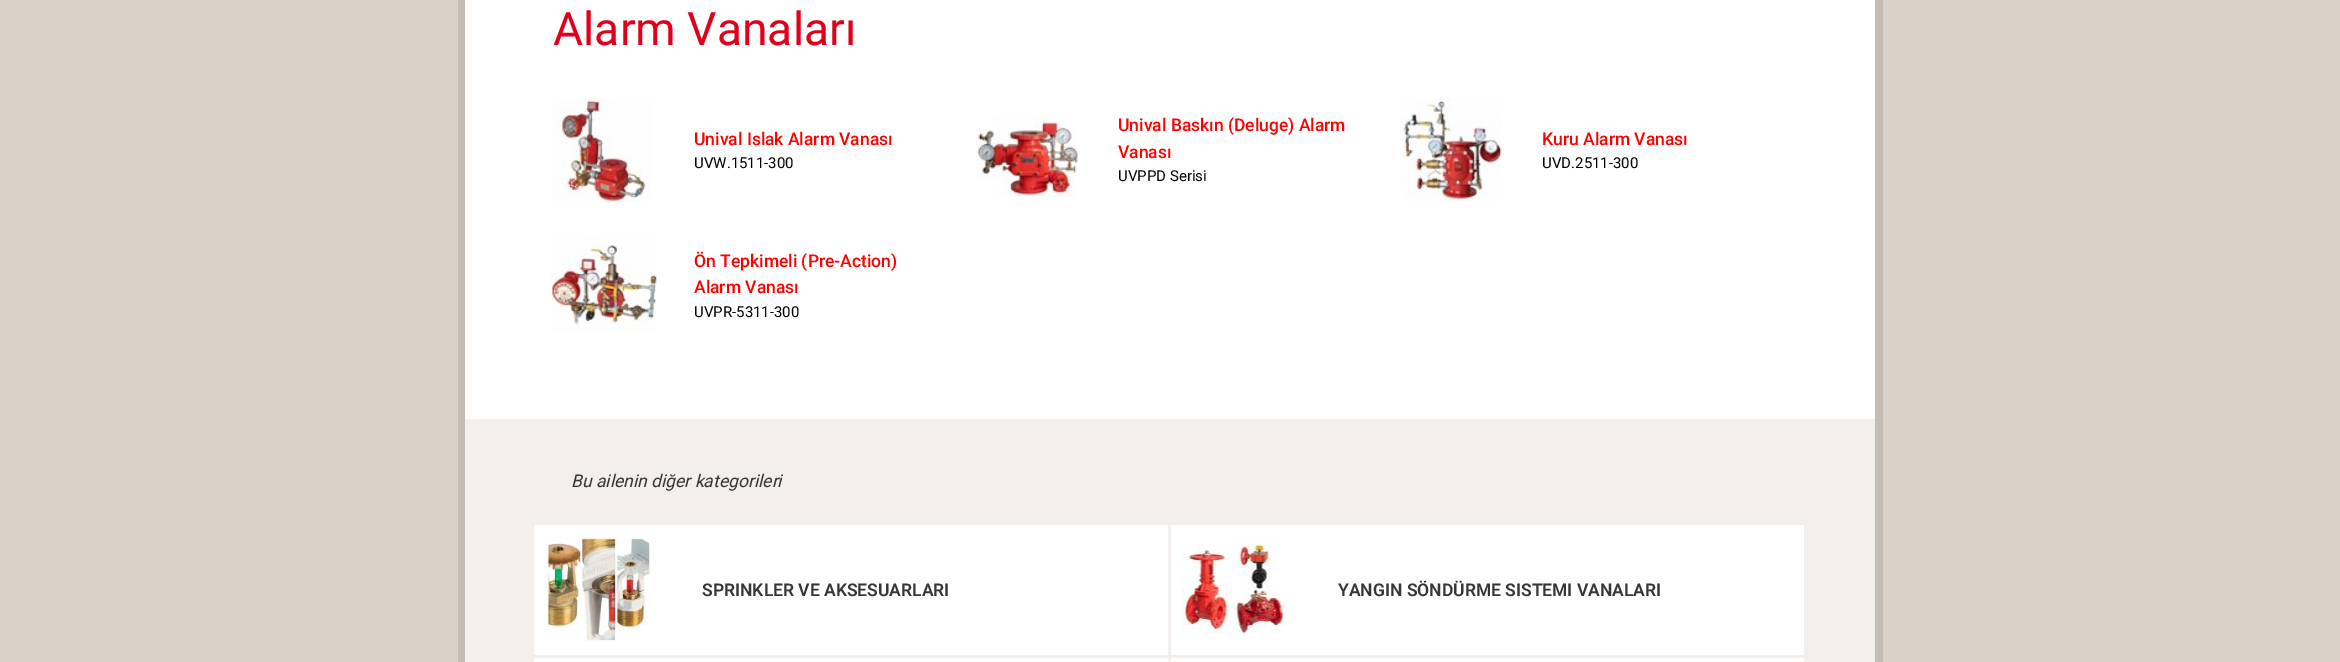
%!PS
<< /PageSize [2340 662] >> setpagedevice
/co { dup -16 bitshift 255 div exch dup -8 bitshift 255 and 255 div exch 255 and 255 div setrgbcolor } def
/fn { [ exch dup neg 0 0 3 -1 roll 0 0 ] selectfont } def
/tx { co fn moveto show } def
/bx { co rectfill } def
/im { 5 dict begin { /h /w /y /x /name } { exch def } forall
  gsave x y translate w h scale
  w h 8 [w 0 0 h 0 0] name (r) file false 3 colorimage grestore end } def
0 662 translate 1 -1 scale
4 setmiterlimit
0 0 2340 662 16#DAD1C8 bx
465 0 1410 419 16#FFFFFF bx
1875 0 8 662 16#C5BDB5 bx
458 0 7 662 16#C5BDB5 bx
(media/1.raw) 552 98 100 104 im
(media/2.raw) 976 118 104 79 im
(media/3.raw) 1401 98 101 104 im
(media/4.raw) 552 237 105 95 im
465 419 1410 243 16#F2EFEC bx
534 525 1270 137 16#FFFFFF bx
1168 525 3 137 16#F2EFEC bx
534 655 1272 3 16#F2EFEC bx
(media/5.raw) 546 537 105 105 im
(media/6.raw) 1182 537 105 97 im
(Alarm Vanaları) 553 45 /Roboto-Regular 46.25 16#E0001B tx
(Unival Islak Alarm Vanası) 694 145 /Roboto-Medium 17.5 16#FF0000 tx
(UVW.1511-300) 694 168 /Roboto-Regular 15 16#000000 tx
(Unival Baskın \(Deluge\) Alarm) 1118 131 /Roboto-Medium 17.5 16#FF0000 tx
(Vanası) 1118 158 /Roboto-Medium 17.5 16#FF0000 tx
(UVPPD Serisi) 1118 181 /Roboto-Regular 15 16#000000 tx
(Kuru Alarm Vanası) 1542 145 /Roboto-Medium 17.5 16#FF0000 tx
(UVD.2511-300) 1542 168 /Roboto-Regular 15 16#000000 tx
(Ön Tepkimeli \(Pre-Action\)) 694 267 /Roboto-Medium 17.5 16#FF0000 tx
(Alarm Vanası) 694 293 /Roboto-Medium 17.5 16#FF0000 tx
(UVPR-5311-300) 694 317 /Roboto-Regular 15 16#000000 tx
(Bu ailenin diğer kategorileri) 571 487 /Roboto-Italic 17.5 16#363637 tx
(SPRINKLER VE AKSESUARLARI) 702 596 /Roboto-SemiBold 17.5 16#363637 tx
(YANGIN SÖNDÜRME SISTEMI VANALARI) 1338 596 /Roboto-SemiBold 17.5 16#363637 tx
showpage
